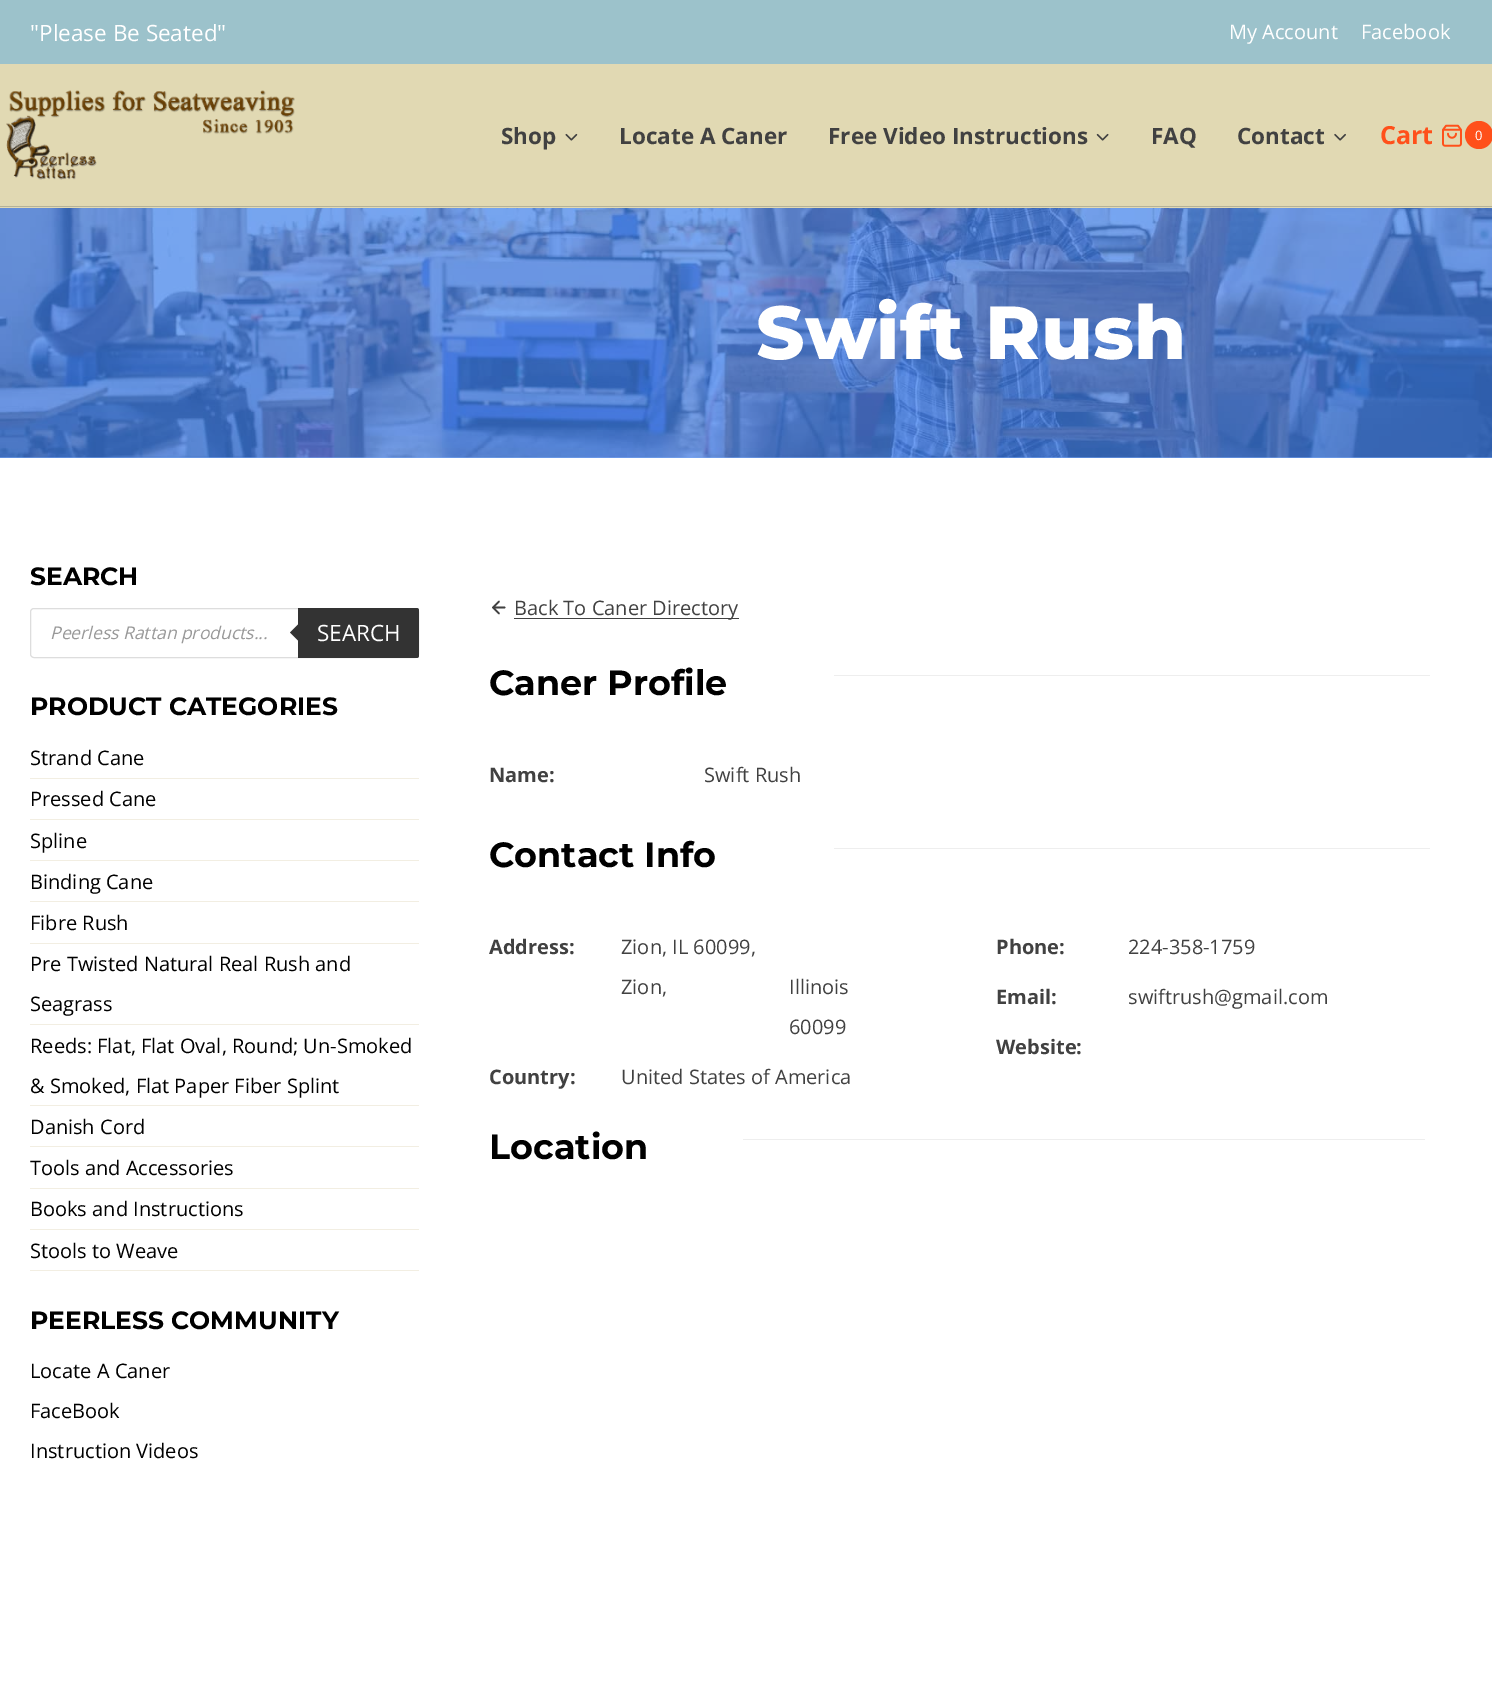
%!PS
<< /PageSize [1492 1686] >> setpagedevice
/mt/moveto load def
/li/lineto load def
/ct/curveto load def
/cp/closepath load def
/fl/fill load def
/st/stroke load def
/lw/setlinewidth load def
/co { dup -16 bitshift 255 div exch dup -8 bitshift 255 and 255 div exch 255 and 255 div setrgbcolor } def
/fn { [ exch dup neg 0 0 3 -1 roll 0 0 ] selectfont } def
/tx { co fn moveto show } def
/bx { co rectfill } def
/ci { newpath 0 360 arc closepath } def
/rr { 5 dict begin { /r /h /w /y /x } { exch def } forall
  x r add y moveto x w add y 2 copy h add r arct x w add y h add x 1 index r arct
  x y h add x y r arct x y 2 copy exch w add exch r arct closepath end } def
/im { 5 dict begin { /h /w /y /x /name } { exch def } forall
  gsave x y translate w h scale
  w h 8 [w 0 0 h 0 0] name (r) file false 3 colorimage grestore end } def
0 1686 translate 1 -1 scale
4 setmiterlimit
0 0 1492 1686 16#FFFFFF bx
0 457 1492 1 16#7BAAF7 bx
0 64 1492 144 16#E1D9B3 bx
0 0 1492 64 16#9CC2CB bx
0 206 1492 1 16#B4B29A bx
(media/1.raw) 6 90 289 90 im
(media/2.raw) 565 133 13 8 im
(media/3.raw) 1096 133 13 8 im
(media/4.raw) 1334 133 12 8 im
(media/5.raw) 1442 124 20 23 im
16#FF501A co
1479 135 14 ci fl
(media/6.raw) 0 208 1492 250 im
16#DDDDDD co
30.5 608.5 388 49 3.5 rr st
16#333333 co
298 608 mt 416.5 608 li 418 608 419 609 419 610.5 ct 419 655.5 li 419 657 418 658 416.5 658 ct 298 658 li cp fl
300 622.5 mt 300 642.5 li 290 632.5 li cp fl
30 778 389 1 16#F2EEE2 bx
30 819 389 1 16#F2EEE2 bx
30 860 389 1 16#F2EEE2 bx
30 901 389 1 16#F2EEE2 bx
30 943 389 1 16#F2EEE2 bx
30 1024 389 1 16#F2EEE2 bx
30 1105 389 1 16#F2EEE2 bx
30 1146 389 1 16#F2EEE2 bx
30 1188 389 1 16#F2EEE2 bx
30 1229 389 1 16#F2EEE2 bx
30 1270 389 1 16#F2EEE2 bx
16#414141 co
1.7 lw
1 setlinecap
1 setlinejoin
504.5 607.5 mt 493 607.5 li 499 613.5 mt 493 607.5 li 499 601.5 li st
514 618 225 1 16#414141 bx
834 675 596 1 16#EEEEEE bx
834 848 596 1 16#EEEEEE bx
743 1139 682 1 16#EEEEEE bx
("Please Be Seated") 30 41 /OpenSans-Regular 22.5 16#FFFFFF tx
(My Account) 1229 39 /OpenSans-Regular 20 16#FFFFFF tx
(Facebook) 1361 39 /OpenSans-Regular 20 16#FFFFFF tx
(Shop) 501 144 /OpenSans-Bold 22.5 16#414141 tx
(Locate A Caner) 619 144 /OpenSans-Bold 22.5 16#414141 tx
(Free Video Instructions) 828 144 /OpenSans-Bold 22.5 16#414141 tx
(FAQ) 1151 144 /OpenSans-Bold 22.5 16#414141 tx
(Contact) 1237 144 /OpenSans-Bold 22.5 16#414141 tx
(Cart) 1380 144 /OpenSans-Bold 25 16#FF501A tx
(0) 1475 140 /OpenSans-Regular 13 16#FFFFFF tx
(Swift Rush) 756 359 /Montserrat-ExtraBold 75 16#FFFFFF tx
(SEARCH) 30 585 /Montserrat-Bold 25 16#000000 tx
(Peerless Rattan products...) 50 639 /OpenSans-Italic 17.5 16#999999 tx
(SEARCH) 317 641 /OpenSans-Regular 22.5 16#FFFFFF tx
(PRODUCT CATEGORIES) 30 715 /Montserrat-Bold 25 16#000000 tx
(Strand Cane) 30 765 /OpenSans-Regular 20 16#000000 tx
(Pressed Cane) 30 806 /OpenSans-Regular 20 16#000000 tx
(Spline) 30 848 /OpenSans-Regular 20 16#000000 tx
(Binding Cane) 30 889 /OpenSans-Regular 20 16#000000 tx
(Fibre Rush) 30 930 /OpenSans-Regular 20 16#000000 tx
(Pre Twisted Natural Real Rush and) 30 971 /OpenSans-Regular 20 16#000000 tx
(Seagrass) 30 1011 /OpenSans-Regular 20 16#000000 tx
(Reeds: Flat, Flat Oval, Round; Un-Smoked) 30 1053 /OpenSans-Regular 20 16#000000 tx
(& Smoked, Flat Paper Fiber Splint) 30 1093 /OpenSans-Regular 20 16#000000 tx
(Danish Cord) 30 1134 /OpenSans-Regular 20 16#000000 tx
(Tools and Accessories) 30 1175 /OpenSans-Regular 20 16#000000 tx
(Books and Instructions) 30 1216 /OpenSans-Regular 20 16#000000 tx
(Stools to Weave) 30 1258 /OpenSans-Regular 20 16#000000 tx
(PEERLESS COMMUNITY) 30 1329 /Montserrat-Bold 25 16#000000 tx
(Locate A Caner) 30 1378 /OpenSans-Regular 20 16#000000 tx
(FaceBook) 30 1418 /OpenSans-Regular 20 16#000000 tx
(Instruction Videos) 30 1458 /OpenSans-Regular 20 16#000000 tx
(Back To Caner Directory) 514 615 /OpenSans-Regular 20 16#414141 tx
(Caner Profile) 489 695 /Montserrat-Bold 35 16#000000 tx
(Name:) 489 782 /OpenSans-Bold 20 16#414141 tx
(Swift Rush) 704 782 /OpenSans-Regular 20 16#414141 tx
(Contact Info) 489 867 /Montserrat-Bold 35 16#000000 tx
(Address:) 489 954 /OpenSans-Bold 20 16#414141 tx
(Zion, IL 60099,) 621 954 /OpenSans-Regular 20 16#414141 tx
(Zion,) 621 994 /OpenSans-Regular 20 16#414141 tx
(Illinois) 789 994 /OpenSans-Regular 20 16#414141 tx
(60099) 789 1034 /OpenSans-Regular 20 16#414141 tx
(Country:) 489 1084 /OpenSans-Bold 20 16#414141 tx
(United States of America) 621 1084 /OpenSans-Regular 20 16#414141 tx
(Phone:) 996 954 /OpenSans-Bold 20 16#414141 tx
(224-358-1759) 1128 954 /OpenSans-Regular 20 16#414141 tx
(Email:) 996 1004 /OpenSans-Bold 20 16#414141 tx
(swiftrush@gmail.com) 1128 1004 /OpenSans-Regular 20 16#414141 tx
(Website:) 996 1054 /OpenSans-Bold 20 16#414141 tx
(Location) 489 1159 /Montserrat-Bold 35 16#000000 tx
showpage
